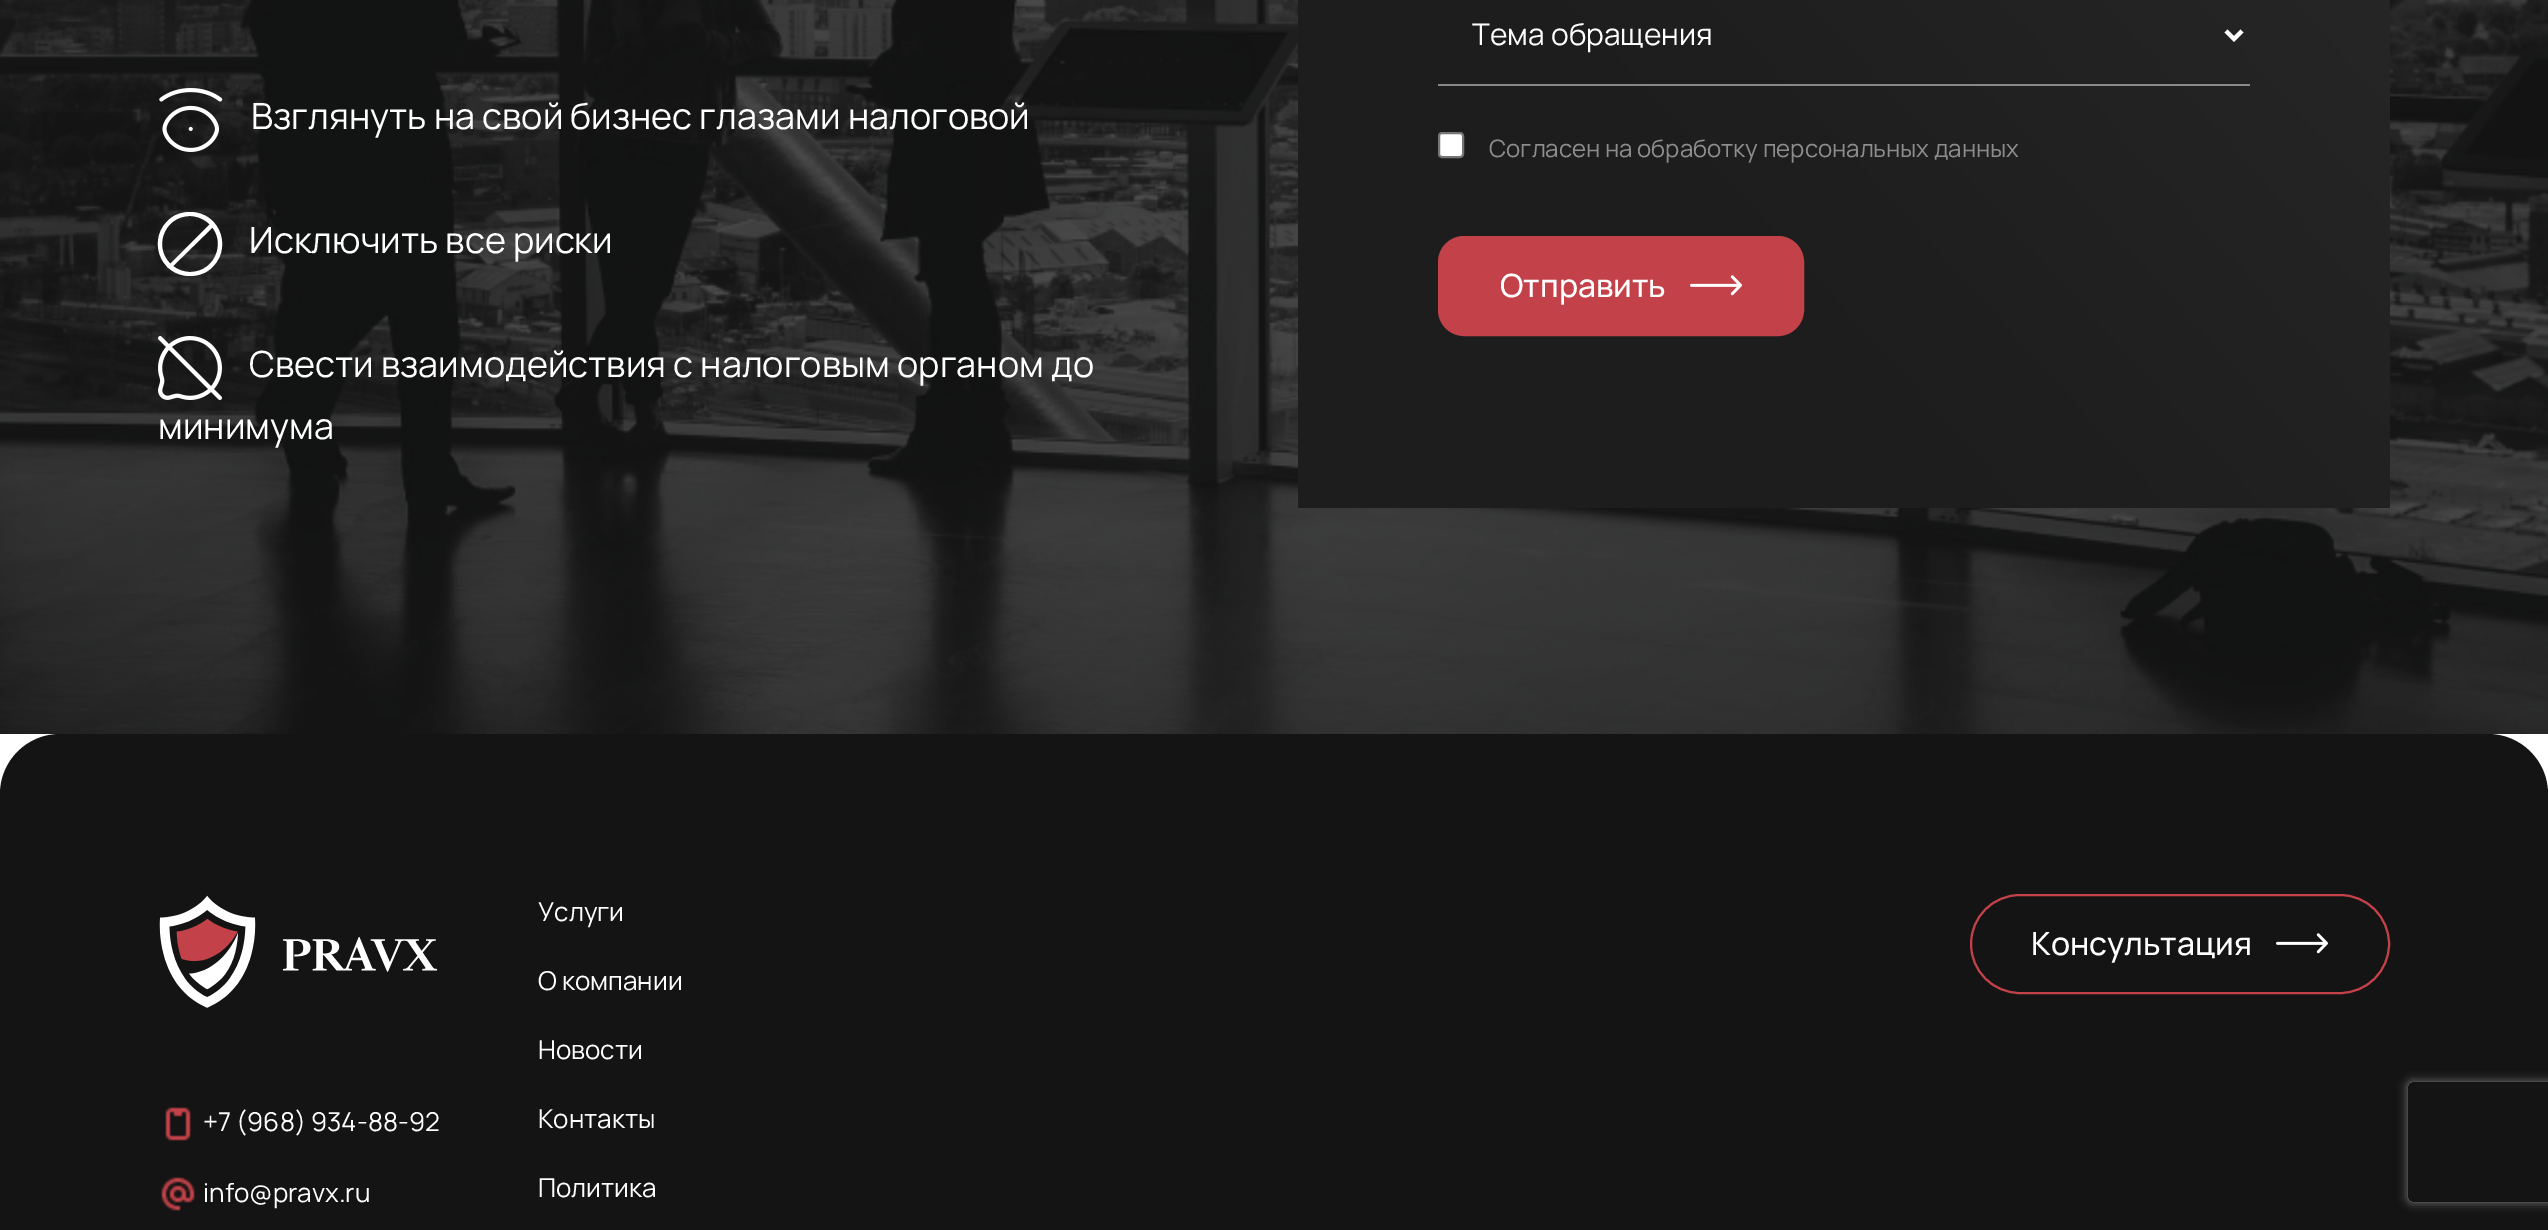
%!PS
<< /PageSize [2548 1230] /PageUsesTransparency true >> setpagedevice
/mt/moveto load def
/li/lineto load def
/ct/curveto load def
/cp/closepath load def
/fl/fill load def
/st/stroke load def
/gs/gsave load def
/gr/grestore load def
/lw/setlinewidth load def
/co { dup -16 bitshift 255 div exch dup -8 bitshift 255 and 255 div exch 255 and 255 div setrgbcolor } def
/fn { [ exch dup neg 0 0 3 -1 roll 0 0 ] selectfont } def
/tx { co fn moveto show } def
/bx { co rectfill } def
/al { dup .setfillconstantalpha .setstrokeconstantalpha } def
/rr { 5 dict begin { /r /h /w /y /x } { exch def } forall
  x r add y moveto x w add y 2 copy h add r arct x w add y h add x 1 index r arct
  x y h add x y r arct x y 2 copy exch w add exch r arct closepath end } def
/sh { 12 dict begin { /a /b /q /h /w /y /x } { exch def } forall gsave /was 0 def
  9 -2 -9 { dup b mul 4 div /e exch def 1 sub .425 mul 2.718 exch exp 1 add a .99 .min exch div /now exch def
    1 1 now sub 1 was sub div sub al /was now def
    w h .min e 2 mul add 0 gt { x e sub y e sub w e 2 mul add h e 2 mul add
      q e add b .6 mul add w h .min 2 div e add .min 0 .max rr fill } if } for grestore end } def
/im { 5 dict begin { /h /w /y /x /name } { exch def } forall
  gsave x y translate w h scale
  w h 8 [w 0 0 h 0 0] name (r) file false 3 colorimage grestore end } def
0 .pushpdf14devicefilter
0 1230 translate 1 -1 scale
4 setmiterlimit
0 0 2548 1230 16#FFFFFF bx
(media/1.raw) 0 0 2548 734 im
(media/2.raw) 159 88 64 64 im
190 212 mt 183 212 176 214 171 218 ct 146 237 159 276 190 276 ct 197 276 204 274 209 270 ct 234 251 221 212 190 212 ct cp 190 216 mt 196 216 202 218 207 222 ct 228 238 217 272 190 272 ct 184 272 178 270 173 266 ct 152 250 163 216 190 216 ct cp 212 222 mt 167 267 li 170 269 li 215 225 li cp fl
(media/3.raw) 158 336 64 64 im
gs 1298 0 mt 2390 0 li 2390 508 li 1298 508 li cp clip newpath
<< /ShadingType 2 /ColorSpace /DeviceRGB /Coords [2390 -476 1298 508] /Extend [true true] /Function << /FunctionType 3 /Domain [0 1] /Functions [<< /FunctionType 2 /Domain [0 1] /C0 [.157 .157 .157] /C1 [.157 .157 .157] /N 1 >> << /FunctionType 2 /Domain [0 1] /C0 [.157 .157 .157] /C1 [.114 .114 .114] /N 1 >> << /FunctionType 2 /Domain [0 1] /C0 [.114 .114 .114] /C1 [.114 .114 .114] /N 1 >>] /Bounds [.09 .65] /Encode [0 1 0 1 0 1] >> >> shfill gr
0.47 al
1438 84 812 2 16#FFFFFF bx
1 al
4 lw
2226 31 mt 2234 39 li 2242 31 li st
1439 133 24 24 3 rr gs fl gr
16#767676 co
2 lw
st
16#C34249 co
1439 237 364 98 25 rr gs fl gr
st
(media/4.raw) 1690 275 52 21 im
16#141414 co
60 734 mt 2488 734 li 2521 734 2548 761 2548 794 ct 2548 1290 li 0 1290 li 0 794 li 0 761 27 734 60 734 ct cp fl
16#C34249 co
1971 895 418 98 49 rr st
(media/5.raw) 2276 933 52 21 im
(media/6.raw) 159 895 279 113 im
(media/7.raw) 165 1107 26 34 im
(media/8.raw) 161 1177 34 34 im
gs
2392 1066 mt 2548 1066 li 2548 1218 li 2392 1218 li cp 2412 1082 mt 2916 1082 li 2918 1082 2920 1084 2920 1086 ct 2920 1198 li 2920 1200 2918 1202 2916 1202 ct 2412 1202 li 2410 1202 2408 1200 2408 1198 ct 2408 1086 li 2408 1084 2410 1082 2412 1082 ct cp eoclip newpath
16#808080 co
2408 1082 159 120 4 5 1 sh
gr
(Взглянуть на свой бизнес глазами налоговой) 251 129 /Manrope-Regular 36 16#FFFFFF tx
(Исключить все риски) 249 253 /Manrope-Regular 36 16#FFFFFF tx
(Свести взаимодействия с налоговым органом до) 249 377 /Manrope-Regular 36 16#FFFFFF tx
(минимума) 158 439 /Manrope-Regular 36 16#FFFFFF tx
(Тема обращения) 1472 45 /Manrope-Regular 30 16#FFFFFF tx
(Согласен на обработку персональных данных) 1489 157 /Manrope-Regular 24 16#8D8D8D tx
(Отправить) 1500 297 /Manrope-Medium 32 16#FFFFFF tx
(Услуги) 538 921 /Manrope-Regular 26 16#FFFFFF tx
(О компании) 538 990 /Manrope-Regular 26 16#FFFFFF tx
(Новости) 538 1059 /Manrope-Regular 26 16#FFFFFF tx
(Контакты) 538 1128 /Manrope-Regular 26 16#FFFFFF tx
(Политика) 538 1197 /Manrope-Regular 26 16#FFFFFF tx
(Консультация) 2031 955 /Manrope-Medium 32 16#FFFFFF tx
(+7 \(968\) 934-88-92) 203 1131 /Manrope-Regular 26 16#FFFFFF tx
(info@pravx.ru) 203 1202 /Manrope-Regular 26 16#FFFFFF tx
.poppdf14devicefilter showpage
